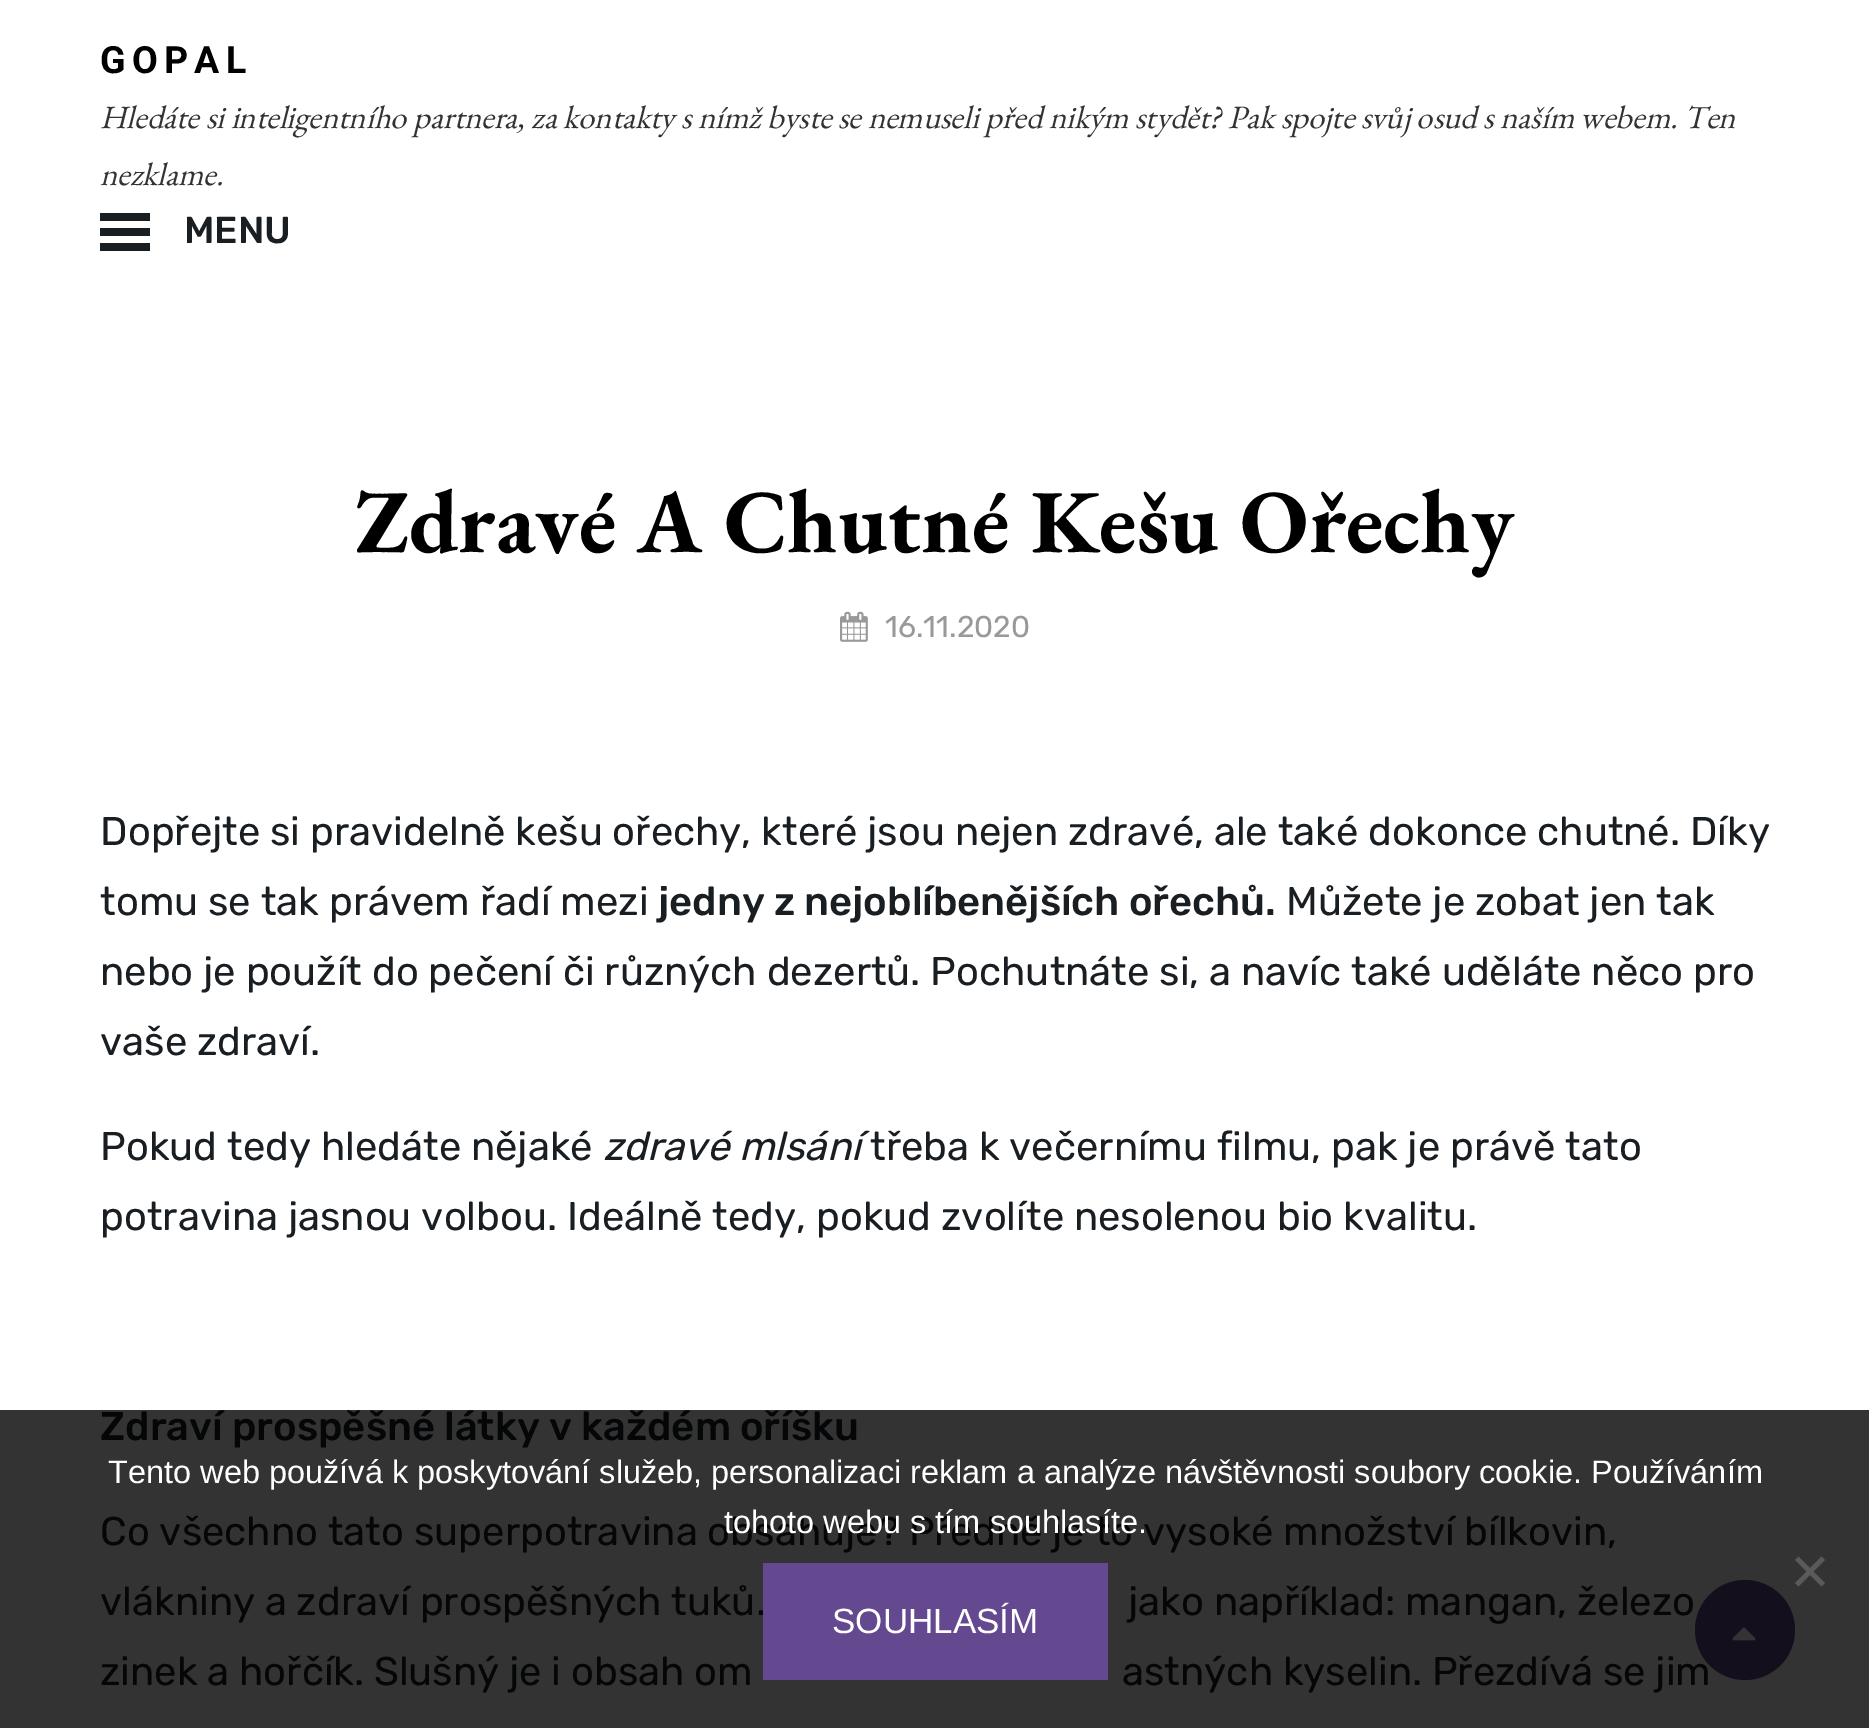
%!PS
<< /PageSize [1869 1728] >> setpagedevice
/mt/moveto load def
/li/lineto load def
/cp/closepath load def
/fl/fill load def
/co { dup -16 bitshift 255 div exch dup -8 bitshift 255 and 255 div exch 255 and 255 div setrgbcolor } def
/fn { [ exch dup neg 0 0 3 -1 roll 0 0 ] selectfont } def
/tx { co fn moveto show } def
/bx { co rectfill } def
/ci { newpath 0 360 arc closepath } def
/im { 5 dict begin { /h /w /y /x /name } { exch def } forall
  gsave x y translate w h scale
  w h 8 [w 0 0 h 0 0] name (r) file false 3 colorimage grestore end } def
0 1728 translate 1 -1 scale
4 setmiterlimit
0 0 1869 1728 16#FFFFFF bx
0 1410 1869 318 16#333333 bx
100 213 50 8 16#191E23 bx
100 228 50 8 16#191E23 bx
100 243 50 8 16#191E23 bx
(media/1.raw) 840 611 28 31 im
16#5A5A5A co
1821.5 1556.5 mt 1825 1560 li 1798.5 1586.5 li 1795 1583 li cp fl
1795 1560 mt 1798.5 1556.5 li 1825 1583 li 1821.5 1586.5 li cp fl
/Roboto-Bold 37.5 fn
16#000000 co
100 73 mt 6.25 0 (GOPAL) ashow
(Hledáte si inteligentního partnera, za kontakty s nímž byste se nemuseli před nikým stydět? Pak spojte svůj osud s naším webem. Ten) 100 128 /EBGaramond-Italic 32.5 16#333333 tx
(nezklame.) 100 185 /EBGaramond-Italic 32.5 16#333333 tx
(MENU) 184 243 /Rubik-Medium 37.5 16#191E23 tx
(Zdravé A Chutné Kešu Ořechy) 355 552 /EBGaramond-Bold 90 16#000000 tx
(16.11.2020) 885 637 /Rubik-Regular 30 16#999999 tx
(Dopřejte si pravidelně kešu ořechy, které jsou nejen zdravé, ale také dokonce chutné. Díky) 100 845 /Rubik-Regular 40 16#191E23 tx
(tomu se tak právem řadí mezi) 100 915 /Rubik-Regular 40 16#191E23 tx
(jedny z nejoblíbenějších ořechů.) 658 915 /Rubik-Medium 40 16#191E23 tx
(Můžete je zobat jen tak) 1286 915 /Rubik-Regular 40 16#191E23 tx
(nebo je použít do pečení či různých dezertů. Pochutnáte si, a navíc také uděláte něco pro) 100 985 /Rubik-Regular 40 16#191E23 tx
(vaše zdraví.) 100 1055 /Rubik-Regular 40 16#191E23 tx
(Pokud tedy hledáte nějaké) 100 1160 /Rubik-Regular 40 16#191E23 tx
(zdravé mlsání) 603 1160 /Rubik-Italic 40 16#191E23 tx
(třeba k večernímu filmu, pak je právě tato) 870 1160 /Rubik-Regular 40 16#191E23 tx
(potravina jasnou volbou. Ideálně tedy, pokud zvolíte nesolenou bio kvalitu.) 100 1230 /Rubik-Regular 40 16#191E23 tx
(Zdraví prospěšné látky v každém oříšku) 100 1440 /Rubik-Medium 40 16#050607 tx
(Co všechno tato superpotravina obsahuje? Předně je to vysoké množství bílkovin,) 100 1545 /Rubik-Regular 40 16#050607 tx
(vlákniny a zdraví prospěšných tuků.) 100 1615 /Rubik-Regular 40 16#050607 tx
(jako například: mangan, železo) 1128 1615 /Rubik-Regular 40 16#050607 tx
(zinek a hořčík. Slušný je i obsah om) 100 1685 /Rubik-Regular 40 16#050607 tx
(astných kyselin. Přezdívá se jim) 1122 1685 /Rubik-Regular 40 16#050607 tx
(Tento web používá k poskytování služeb, personalizaci reklam a analýze návštěvnosti soubory cookie. Používáním) 108 1483 /LiberationSans-Regular 32.5 16#FFFFFF tx
(tohoto webu s tím souhlasíte.) 724 1533 /LiberationSans-Regular 32.5 16#FFFFFF tx
763 1563 345 117 16#654990 bx
(SOUHLASÍM) 832 1633 /LiberationSans-Regular 35 16#FFFFFF tx
16#140F1D co
1745 1630 50 ci fl
(media/2.raw) 1732 1627 24 14 im
showpage
